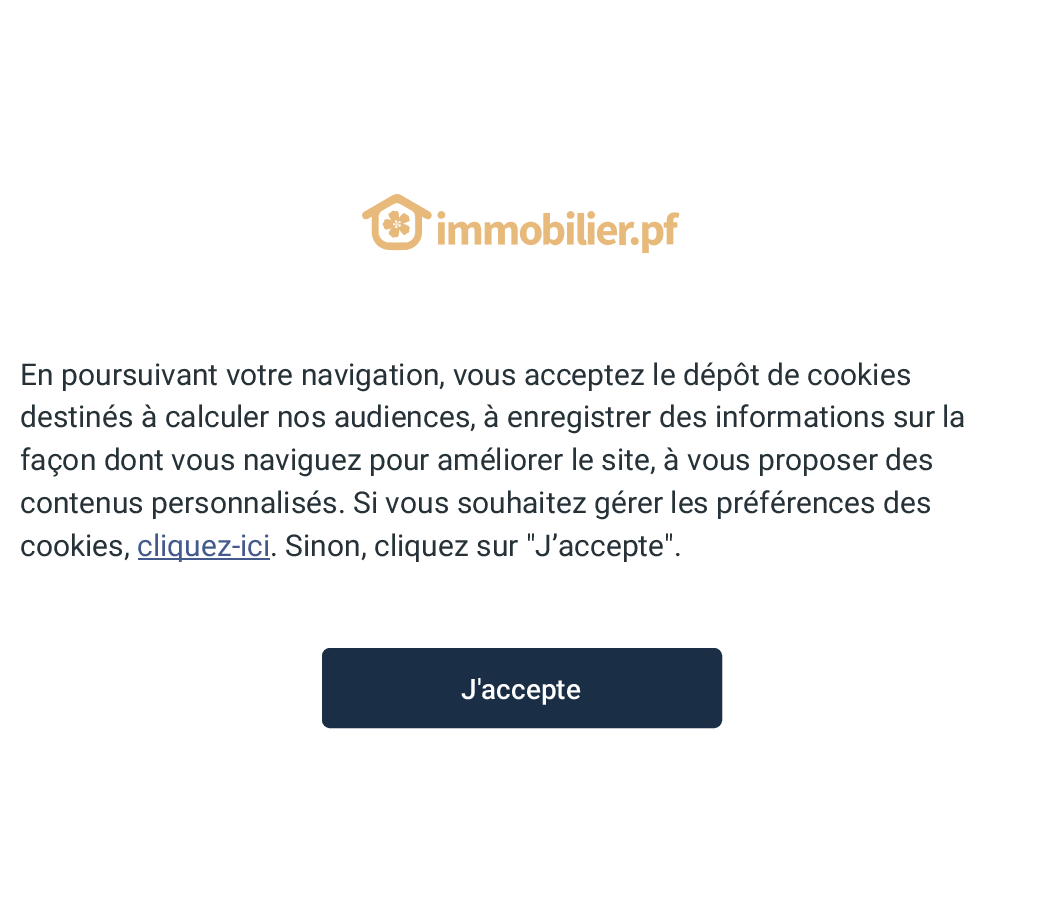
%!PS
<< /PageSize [1042 921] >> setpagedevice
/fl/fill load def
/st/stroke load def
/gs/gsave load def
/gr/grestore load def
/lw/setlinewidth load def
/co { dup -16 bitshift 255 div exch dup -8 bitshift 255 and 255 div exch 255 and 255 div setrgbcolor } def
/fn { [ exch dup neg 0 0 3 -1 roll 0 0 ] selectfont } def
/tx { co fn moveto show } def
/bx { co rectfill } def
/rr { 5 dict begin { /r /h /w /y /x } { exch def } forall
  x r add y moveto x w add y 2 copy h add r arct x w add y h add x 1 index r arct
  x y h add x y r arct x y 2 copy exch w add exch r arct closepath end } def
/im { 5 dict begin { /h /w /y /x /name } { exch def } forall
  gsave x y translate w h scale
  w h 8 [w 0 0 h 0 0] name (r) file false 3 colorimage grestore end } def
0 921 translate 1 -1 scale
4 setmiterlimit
0 0 1042 921 16#FFFFFF bx
(media/1.raw) 362 194 318 60 im
138 558 132 2 16#445A8C bx
16#1A2E45 co
323 649 398 78 7 rr gs fl gr
2 lw
st
(En poursuivant votre navigation, vous acceptez le dépôt de cookies) 20 385 /Roboto-Regular 30 16#263238 tx
(destinés à calculer nos audiences, à enregistrer des informations sur la) 20 427 /Roboto-Regular 30 16#263238 tx
(façon dont vous naviguez pour améliorer le site, à vous proposer des) 20 470 /Roboto-Regular 30 16#263238 tx
(contenus personnalisés. Si vous souhaitez gérer les préférences des) 20 513 /Roboto-Regular 30 16#263238 tx
(cookies,) 20 556 /Roboto-Regular 30 16#263238 tx
(cliquez-ici) 137 556 /Roboto-Regular 30 16#445A8C tx
(. Sinon, cliquez sur "J’accepte".) 270 556 /Roboto-Regular 30 16#263238 tx
(J'accepte) 461 699 /Roboto-Medium 28 16#FFFFFF tx
showpage
